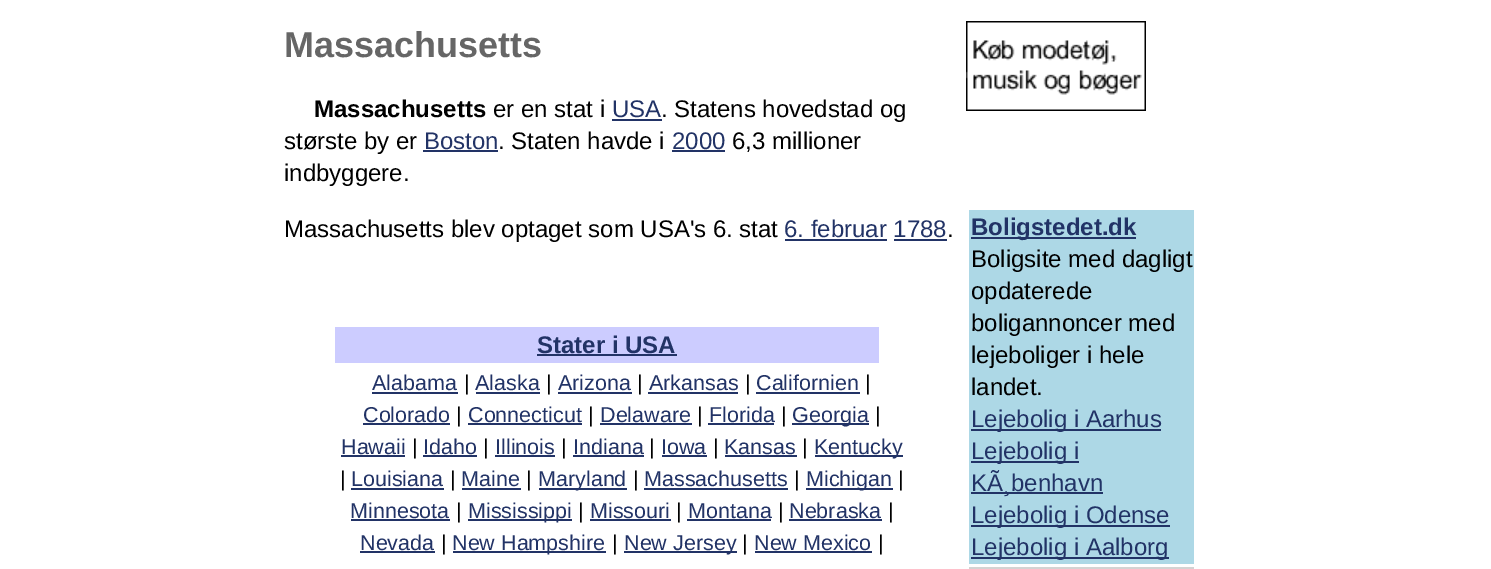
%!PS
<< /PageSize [1491 569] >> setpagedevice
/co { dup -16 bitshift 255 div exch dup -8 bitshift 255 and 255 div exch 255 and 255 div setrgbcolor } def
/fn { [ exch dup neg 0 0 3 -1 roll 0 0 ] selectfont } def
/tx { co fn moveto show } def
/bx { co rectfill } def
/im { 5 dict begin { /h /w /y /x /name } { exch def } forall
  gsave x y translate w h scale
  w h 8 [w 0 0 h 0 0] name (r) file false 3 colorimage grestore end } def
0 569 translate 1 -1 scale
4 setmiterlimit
0 0 1491 569 16#FFFFFF bx
612 119 50 2 16#223366 bx
423 150 75 2 16#223366 bx
672 150 53 2 16#223366 bx
785 239 102 2 16#223366 bx
894 239 53 2 16#223366 bx
335 327 544 36 16#CCCCFF bx
537 354 140 2 16#223366 bx
372 392 86 2 16#223366 bx
476 392 64 2 16#223366 bx
558 392 74 2 16#223366 bx
648 392 90 2 16#223366 bx
756 392 104 2 16#223366 bx
363 423 87 2 16#223366 bx
468 423 114 2 16#223366 bx
600 423 92 2 16#223366 bx
708 423 66 2 16#223366 bx
792 423 77 2 16#223366 bx
341 455 64 2 16#223366 bx
423 455 54 2 16#223366 bx
495 455 60 2 16#223366 bx
573 455 71 2 16#223366 bx
662 455 45 2 16#223366 bx
725 455 72 2 16#223366 bx
815 455 88 2 16#223366 bx
351 488 93 2 16#223366 bx
462 488 59 2 16#223366 bx
539 488 88 2 16#223366 bx
644 488 144 2 16#223366 bx
806 488 87 2 16#223366 bx
351 519 99 2 16#223366 bx
468 519 104 2 16#223366 bx
590 519 81 2 16#223366 bx
687 519 84 2 16#223366 bx
789 519 93 2 16#223366 bx
360 551 75 2 16#223366 bx
453 551 153 2 16#223366 bx
624 551 113 2 16#223366 bx
755 551 117 2 16#223366 bx
(media/1.raw) 966 21 180 90 im
969 210 225 354 16#ADD8E6 bx
971 237 165 2 16#223366 bx
971 429 190 2 16#223366 bx
971 461 108 2 16#223366 bx
971 492 132 2 16#223366 bx
971 525 199 2 16#223366 bx
971 557 198 2 16#223366 bx
969 567 225 2 16#D3D3D3 bx
(Massachusetts) 284 57 /LiberationSans-Bold 36 16#666666 tx
(Massachusetts) 314 117 /LiberationSans-Bold 24 16#000000 tx
(er en stat i) 493 117 /LiberationSans-Regular 24 16#000000 tx
(USA) 612 117 /LiberationSans-Regular 24 16#223366 tx
(. Statens hovedstad og) 661 117 /LiberationSans-Regular 24 16#000000 tx
(største by er) 284 149 /LiberationSans-Regular 24 16#000000 tx
(Boston) 424 149 /LiberationSans-Regular 24 16#223366 tx
(. Staten havde i) 498 149 /LiberationSans-Regular 24 16#000000 tx
(2000) 672 149 /LiberationSans-Regular 24 16#223366 tx
(6,3 millioner) 732 149 /LiberationSans-Regular 24 16#000000 tx
(indbyggere.) 284 181 /LiberationSans-Regular 24 16#000000 tx
(Massachusetts blev optaget som USA's 6. stat) 284 237 /LiberationSans-Regular 24 16#000000 tx
(6. februar 1788) 784 237 /LiberationSans-Regular 24 16#223366 tx
(.) 947 237 /LiberationSans-Regular 24 16#000000 tx
(Stater i USA) 537 353 /LiberationSans-Bold 24 16#223366 tx
(Alabama) 372 390 /LiberationSans-Regular 21.5 16#223366 tx
(|) 464 390 /LiberationSans-Regular 21.5 16#000000 tx
(Alaska) 475 390 /LiberationSans-Regular 21.5 16#223366 tx
(|) 546 390 /LiberationSans-Regular 21.5 16#000000 tx
(Arizona) 558 390 /LiberationSans-Regular 21.5 16#223366 tx
(|) 637 390 /LiberationSans-Regular 21.5 16#000000 tx
(Arkansas) 649 390 /LiberationSans-Regular 21.5 16#223366 tx
(|) 745 390 /LiberationSans-Regular 21.5 16#000000 tx
(Californien) 756 390 /LiberationSans-Regular 21.5 16#223366 tx
(|) 865 390 /LiberationSans-Regular 21.5 16#000000 tx
(Colorado) 363 422 /LiberationSans-Regular 21.5 16#223366 tx
(|) 456 422 /LiberationSans-Regular 21.5 16#000000 tx
(Connecticut) 468 422 /LiberationSans-Regular 21.5 16#223366 tx
(|) 588 422 /LiberationSans-Regular 21.5 16#000000 tx
(Delaware) 600 422 /LiberationSans-Regular 21.5 16#223366 tx
(|) 697 422 /LiberationSans-Regular 21.5 16#000000 tx
(Florida) 709 422 /LiberationSans-Regular 21.5 16#223366 tx
(|) 781 422 /LiberationSans-Regular 21.5 16#000000 tx
(Georgia) 792 422 /LiberationSans-Regular 21.5 16#223366 tx
(|) 875 422 /LiberationSans-Regular 21.5 16#000000 tx
(Hawaii) 341 454 /LiberationSans-Regular 21.5 16#223366 tx
(|) 412 454 /LiberationSans-Regular 21.5 16#000000 tx
(Idaho) 423 454 /LiberationSans-Regular 21.5 16#223366 tx
(|) 483 454 /LiberationSans-Regular 21.5 16#000000 tx
(Illinois) 495 454 /LiberationSans-Regular 21.5 16#223366 tx
(|) 561 454 /LiberationSans-Regular 21.5 16#000000 tx
(Indiana) 573 454 /LiberationSans-Regular 21.5 16#223366 tx
(|) 649 454 /LiberationSans-Regular 21.5 16#000000 tx
(Iowa) 661 454 /LiberationSans-Regular 21.5 16#223366 tx
(|) 713 454 /LiberationSans-Regular 21.5 16#000000 tx
(Kansas) 724 454 /LiberationSans-Regular 21.5 16#223366 tx
(|) 802 454 /LiberationSans-Regular 21.5 16#000000 tx
(Kentucky) 814 454 /LiberationSans-Regular 21.5 16#223366 tx
(|) 340 486 /LiberationSans-Regular 21.5 16#000000 tx
(Louisiana) 351 486 /LiberationSans-Regular 21.5 16#223366 tx
(|) 450 486 /LiberationSans-Regular 21.5 16#000000 tx
(Maine) 461 486 /LiberationSans-Regular 21.5 16#223366 tx
(|) 526 486 /LiberationSans-Regular 21.5 16#000000 tx
(Maryland) 538 486 /LiberationSans-Regular 21.5 16#223366 tx
(|) 633 486 /LiberationSans-Regular 21.5 16#000000 tx
(Massachusetts) 644 486 /LiberationSans-Regular 21.5 16#223366 tx
(|) 794 486 /LiberationSans-Regular 21.5 16#000000 tx
(Michigan) 806 486 /LiberationSans-Regular 21.5 16#223366 tx
(|) 898 486 /LiberationSans-Regular 21.5 16#000000 tx
(Minnesota) 350 518 /LiberationSans-Regular 21.5 16#223366 tx
(|) 456 518 /LiberationSans-Regular 21.5 16#000000 tx
(Mississippi) 468 518 /LiberationSans-Regular 21.5 16#223366 tx
(|) 578 518 /LiberationSans-Regular 21.5 16#000000 tx
(Missouri) 590 518 /LiberationSans-Regular 21.5 16#223366 tx
(|) 676 518 /LiberationSans-Regular 21.5 16#000000 tx
(Montana) 688 518 /LiberationSans-Regular 21.5 16#223366 tx
(|) 778 518 /LiberationSans-Regular 21.5 16#000000 tx
(Nebraska) 789 518 /LiberationSans-Regular 21.5 16#223366 tx
(|) 888 518 /LiberationSans-Regular 21.5 16#000000 tx
(Nevada) 360 550 /LiberationSans-Regular 21.5 16#223366 tx
(|) 441 550 /LiberationSans-Regular 21.5 16#000000 tx
(New Hampshire) 452 550 /LiberationSans-Regular 21.5 16#223366 tx
(|) 612 550 /LiberationSans-Regular 21.5 16#000000 tx
(New Jersey) 624 550 /LiberationSans-Regular 21.5 16#223366 tx
(|) 742 550 /LiberationSans-Regular 21.5 16#000000 tx
(New Mexico) 754 550 /LiberationSans-Regular 21.5 16#223366 tx
(|) 878 550 /LiberationSans-Regular 21.5 16#000000 tx
(Boligstedet.dk) 971 235 /LiberationSans-Bold 24 16#223366 tx
(Boligsite med dagligt) 971 267 /LiberationSans-Regular 24 16#000000 tx
(opdaterede) 971 299 /LiberationSans-Regular 24 16#000000 tx
(boligannoncer med) 971 331 /LiberationSans-Regular 24 16#000000 tx
(lejeboliger i hele) 971 363 /LiberationSans-Regular 24 16#000000 tx
(landet.) 971 395 /LiberationSans-Regular 24 16#000000 tx
(Lejebolig i Aarhus) 971 427 /LiberationSans-Regular 24 16#223366 tx
(Lejebolig i) 971 459 /LiberationSans-Regular 24 16#223366 tx
(KÃ¸benhavn) 971 491 /LiberationSans-Regular 24 16#223366 tx
(Lejebolig i Odense) 971 523 /LiberationSans-Regular 24 16#223366 tx
(Lejebolig i Aalborg) 971 555 /LiberationSans-Regular 24 16#223366 tx
showpage
